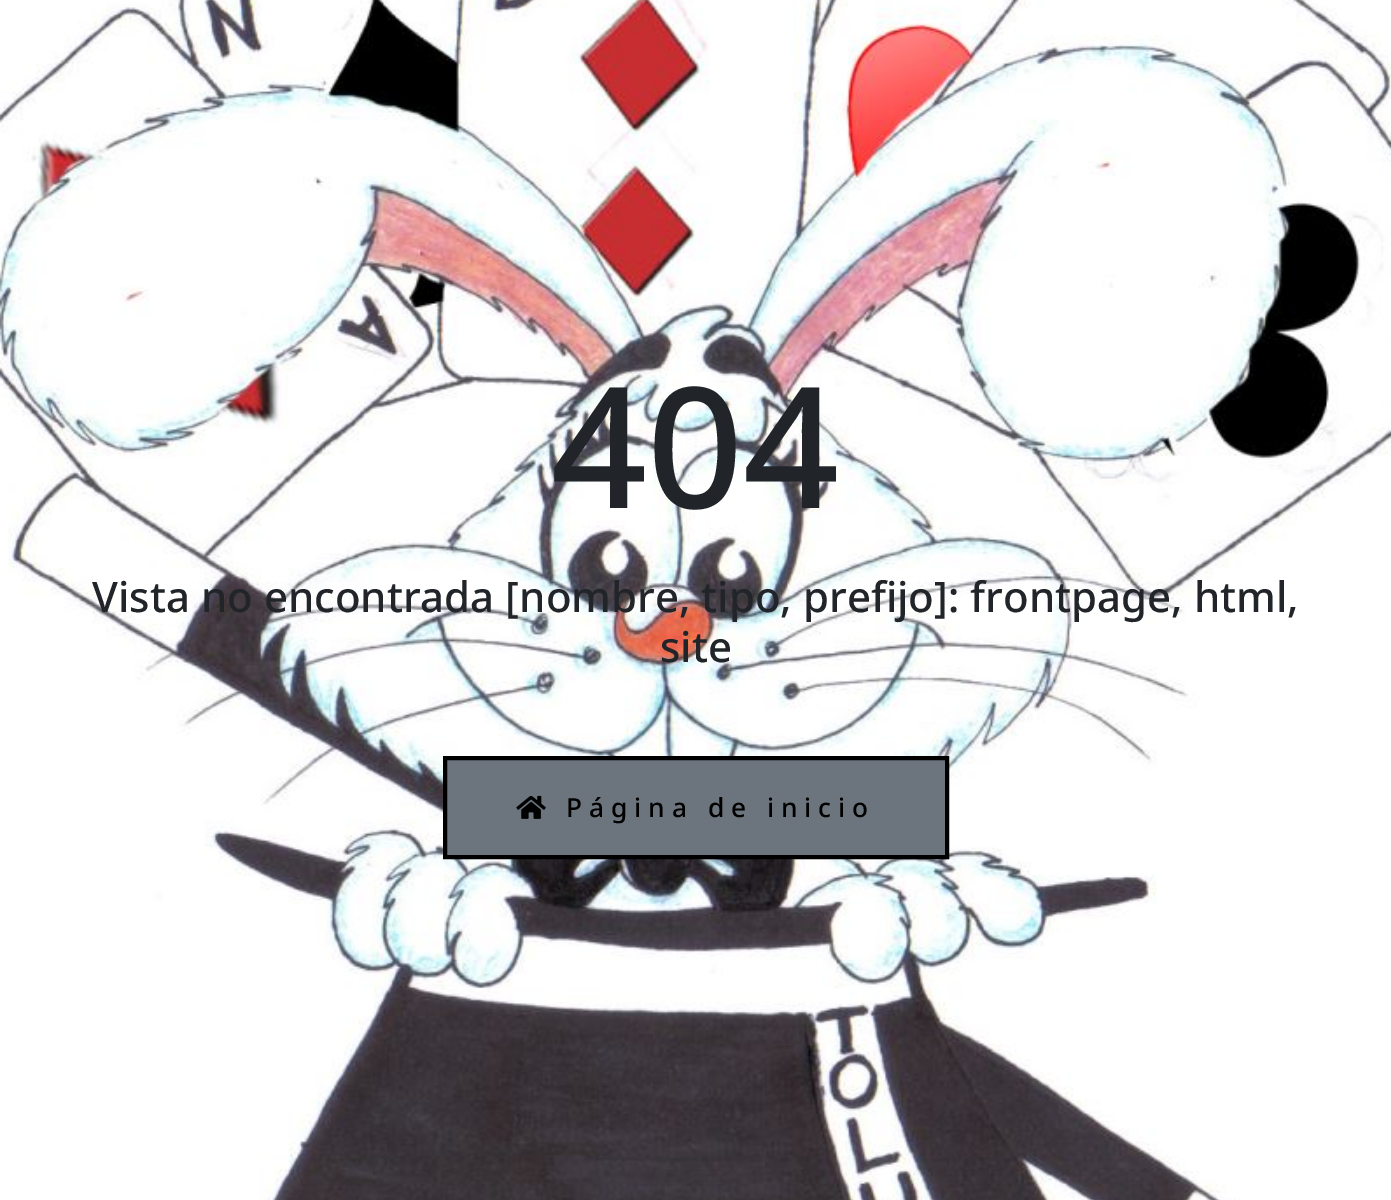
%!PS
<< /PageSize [1391 1200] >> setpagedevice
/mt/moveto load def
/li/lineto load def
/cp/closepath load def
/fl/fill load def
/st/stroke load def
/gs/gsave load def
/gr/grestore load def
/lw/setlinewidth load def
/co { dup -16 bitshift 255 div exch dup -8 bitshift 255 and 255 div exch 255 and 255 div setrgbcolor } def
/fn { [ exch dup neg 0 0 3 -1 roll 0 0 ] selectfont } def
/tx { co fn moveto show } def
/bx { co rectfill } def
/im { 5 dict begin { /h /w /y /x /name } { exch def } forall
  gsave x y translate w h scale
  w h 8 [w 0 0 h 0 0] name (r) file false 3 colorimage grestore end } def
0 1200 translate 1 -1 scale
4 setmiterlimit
0 0 1391 1200 16#FFFFFF bx
(media/1.raw) 0 0 1391 1200 im
16#6C757D co
445 758 mt 947 758 li 947 857 li 445 857 li cp gs fl gr
16#000000 co
4 lw
st
(media/2.raw) 516 795 30 24 im
(404) 551 508 /NotoSans-Medium 168 16#212529 tx
(Vista no encontrada [nombre, tipo, prefijo]: frontpage, html,) 92 612 /NotoSans-Medium 42 16#212529 tx
(site) 660 662 /NotoSans-Medium 42 16#212529 tx
/NotoSans-Medium 26.25 fn
16#000000 co
566 817 mt 7 0 (Página de inicio) ashow
showpage
